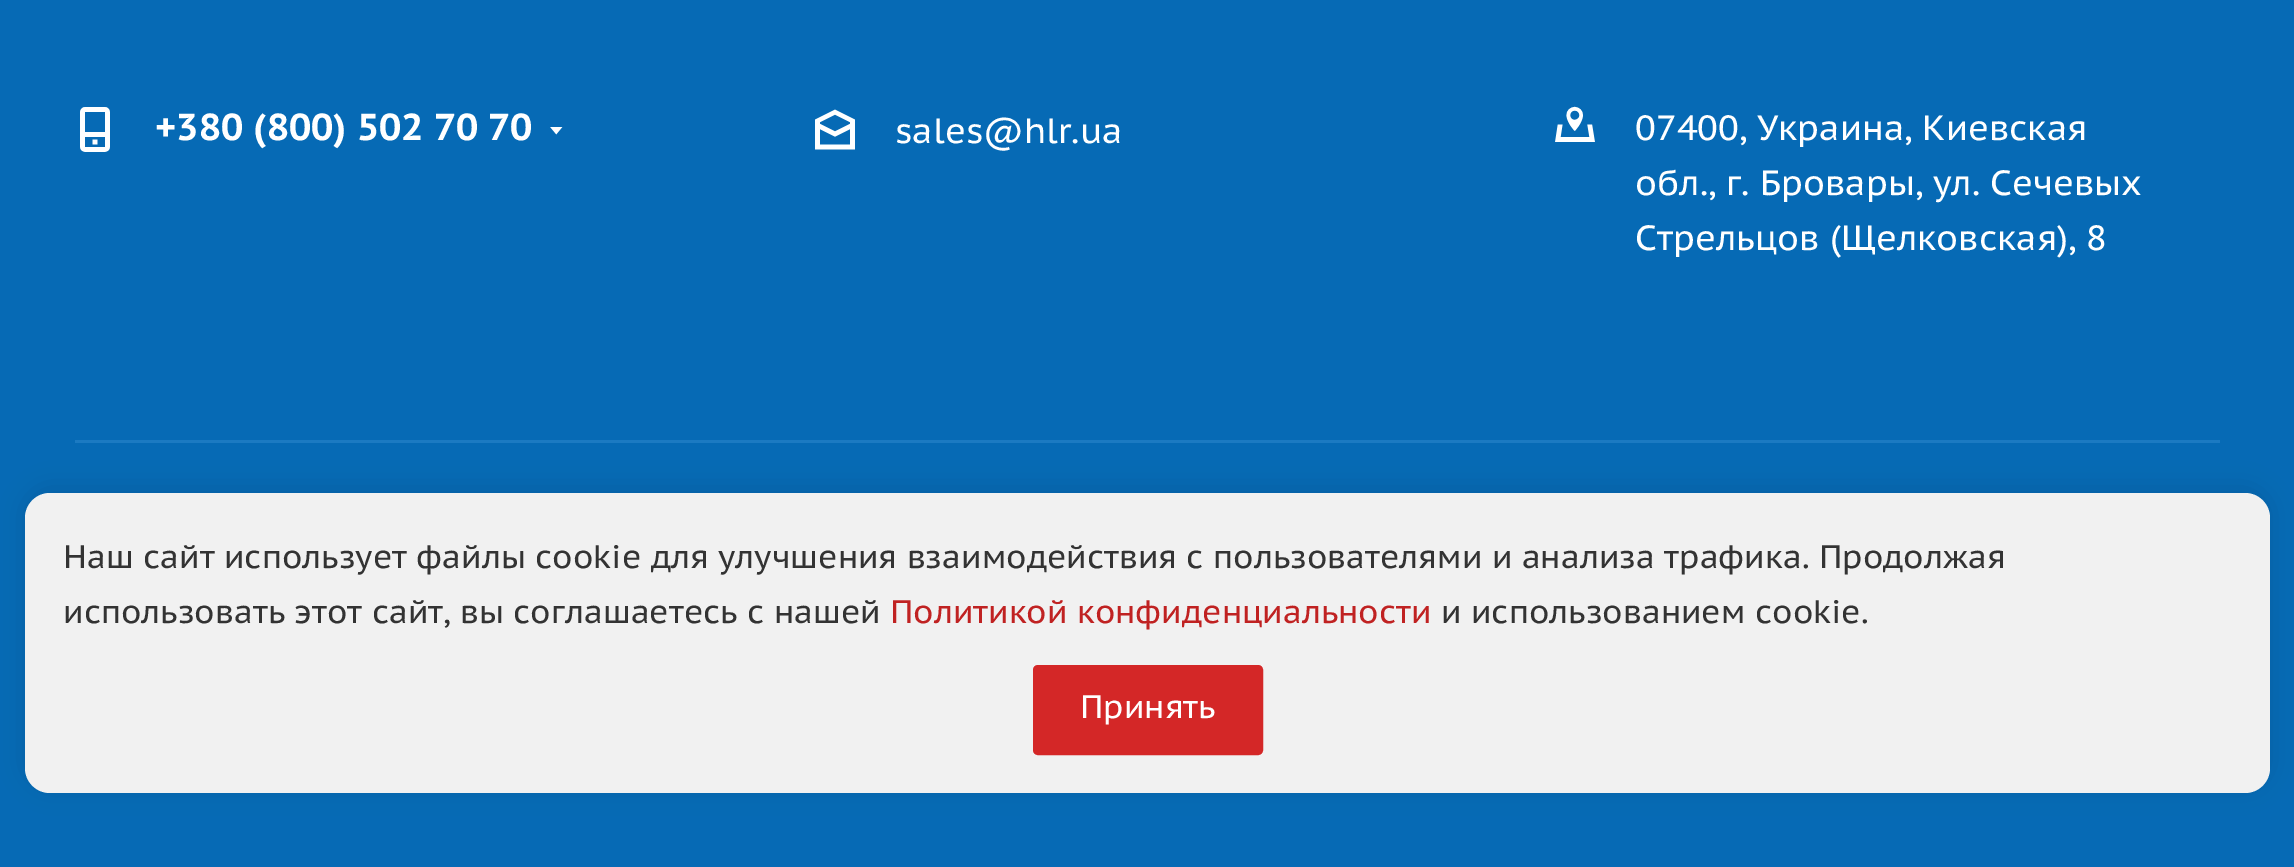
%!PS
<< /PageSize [2294 867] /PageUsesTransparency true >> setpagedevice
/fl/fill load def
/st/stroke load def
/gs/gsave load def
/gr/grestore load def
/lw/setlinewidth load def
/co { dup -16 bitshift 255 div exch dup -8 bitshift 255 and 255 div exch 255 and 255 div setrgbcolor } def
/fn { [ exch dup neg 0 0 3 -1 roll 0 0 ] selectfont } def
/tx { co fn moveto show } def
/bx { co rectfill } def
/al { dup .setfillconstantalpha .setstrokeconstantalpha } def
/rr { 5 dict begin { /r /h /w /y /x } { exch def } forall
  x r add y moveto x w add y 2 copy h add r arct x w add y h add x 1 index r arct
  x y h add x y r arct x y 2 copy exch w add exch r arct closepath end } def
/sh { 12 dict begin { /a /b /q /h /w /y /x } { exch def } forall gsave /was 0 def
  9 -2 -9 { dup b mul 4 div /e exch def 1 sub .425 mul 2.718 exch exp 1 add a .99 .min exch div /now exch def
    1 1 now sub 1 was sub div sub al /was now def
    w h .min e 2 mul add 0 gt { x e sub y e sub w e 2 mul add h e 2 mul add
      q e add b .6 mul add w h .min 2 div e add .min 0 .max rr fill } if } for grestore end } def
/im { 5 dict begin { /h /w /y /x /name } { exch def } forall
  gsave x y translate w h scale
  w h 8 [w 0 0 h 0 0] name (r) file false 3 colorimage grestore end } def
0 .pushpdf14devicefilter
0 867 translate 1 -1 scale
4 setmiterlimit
0 0 2294 867 16#066AB5 bx
(media/1.raw) 80 107 30 45 im
(media/2.raw) 550 127 13 8 im
(media/3.raw) 815 109 40 41 im
(media/4.raw) 1555 106 40 36 im
75 440 2145 3 16#1B7AC2 bx
16#000000 co
25 488 2245 300 25 12.5 .1 sh
16#F1F1F1 co
25 493 2245 300 25 rr fl
16#D42727 co
1034.5 666.5 227 87 3.5 rr gs fl gr
3 lw
st
(+380 \(800\) 502 70 70) 155 140 /PTSansCaption-Bold 37.5 16#FFFFFF tx
(sales@hlr.ua) 895 143 /PTSansCaption-Regular 35 16#FFFFFF tx
(07400, Украина, Киевская) 1635 140 /PTSansCaption-Regular 35 16#FFFFFF tx
(обл., г. Бровары, ул. Сечевых) 1635 195 /PTSansCaption-Regular 35 16#FFFFFF tx
(Стрельцов \(Щелковская\), 8) 1635 250 /PTSansCaption-Regular 35 16#FFFFFF tx
(Наш сайт использует файлы cookie для улучшения взаимодействия с пользователями и анализа трафика. Продолжая) 63 568 /PTSansCaption-Regular 32.5 16#333333 tx
(использовать этот сайт, вы соглашаетесь с нашей) 63 623 /PTSansCaption-Regular 32.5 16#333333 tx
(Политикой конфиденциальности) 890 623 /PTSansCaption-Regular 32.5 16#C02222 tx
(и использованием cookie.) 1441 623 /PTSansCaption-Regular 32.5 16#333333 tx
(Принять) 1080 718 /PTSansCaption-Regular 32.5 16#FFFFFF tx
.poppdf14devicefilter showpage
